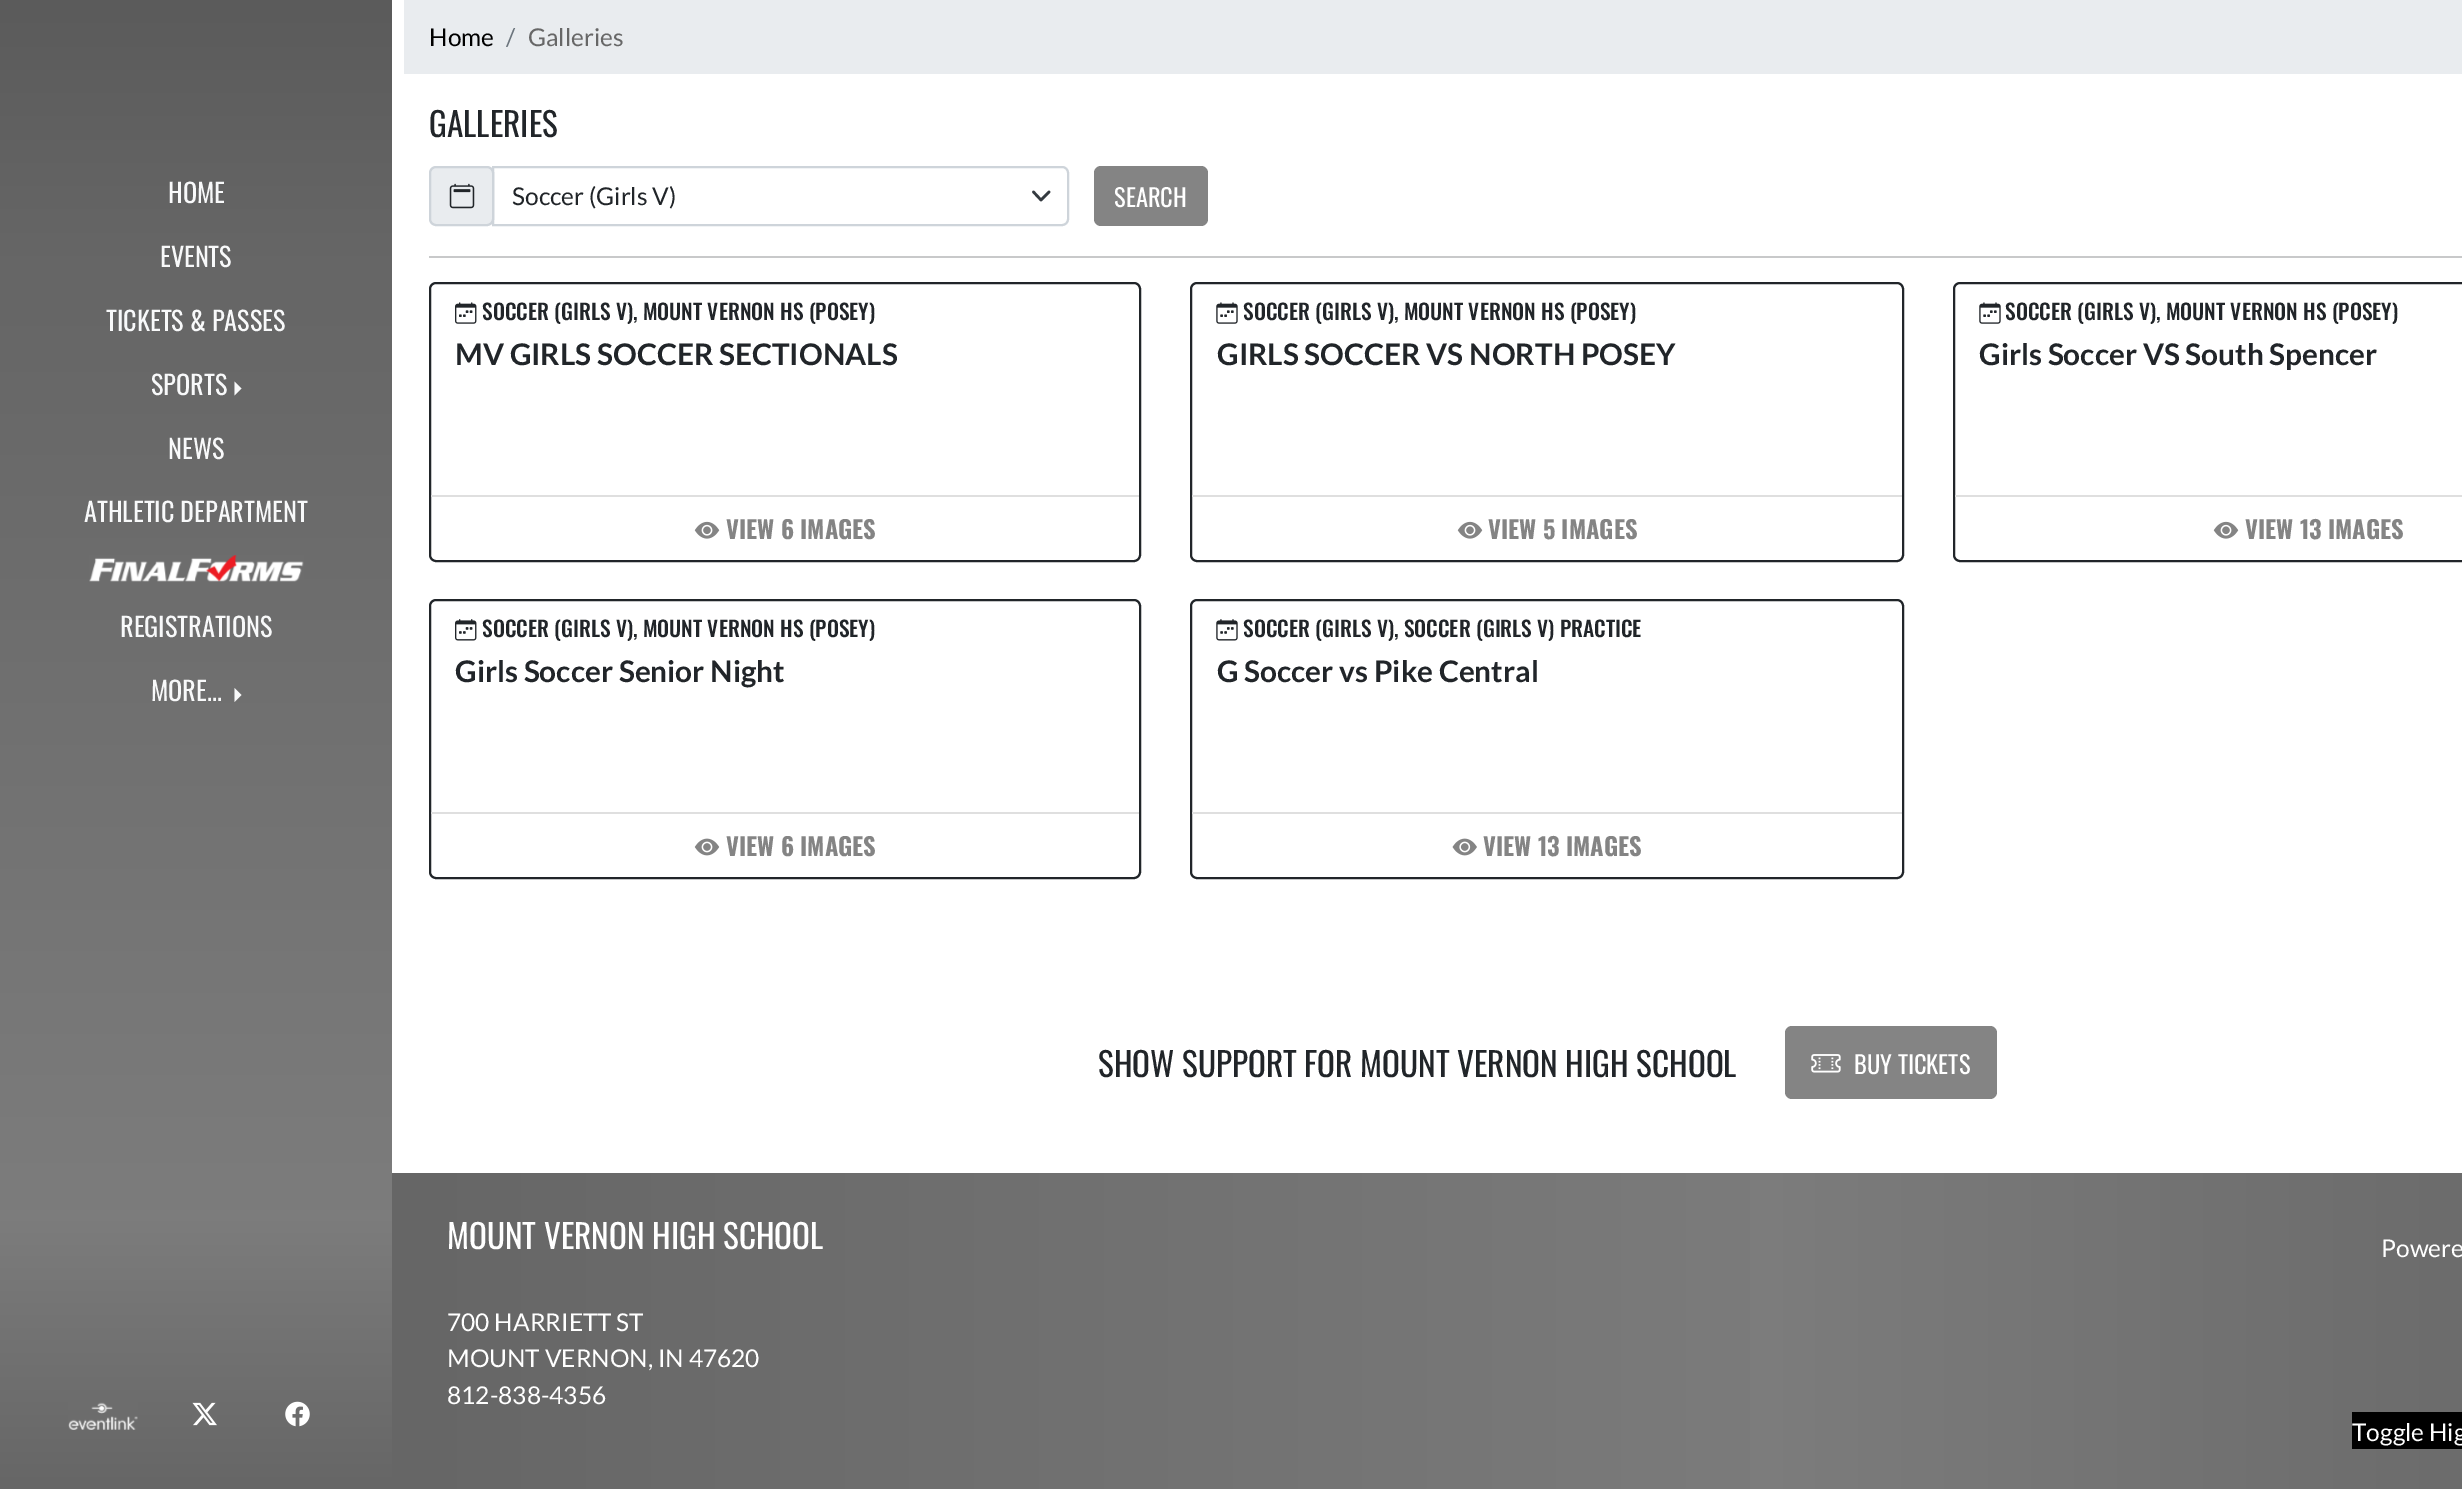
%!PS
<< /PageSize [2462 1489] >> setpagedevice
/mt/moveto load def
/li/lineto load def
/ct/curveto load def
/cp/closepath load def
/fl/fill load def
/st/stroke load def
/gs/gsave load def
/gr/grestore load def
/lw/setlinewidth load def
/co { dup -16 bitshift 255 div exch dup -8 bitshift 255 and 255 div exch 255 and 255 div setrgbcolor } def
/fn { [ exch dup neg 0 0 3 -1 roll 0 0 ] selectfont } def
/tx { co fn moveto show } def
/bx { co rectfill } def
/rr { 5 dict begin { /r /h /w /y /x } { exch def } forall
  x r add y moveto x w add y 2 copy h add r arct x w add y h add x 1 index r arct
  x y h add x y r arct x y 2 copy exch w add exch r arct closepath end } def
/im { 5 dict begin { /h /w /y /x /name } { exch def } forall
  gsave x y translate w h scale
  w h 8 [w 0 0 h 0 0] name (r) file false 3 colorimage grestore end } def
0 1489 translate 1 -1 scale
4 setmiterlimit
0 0 2462 1489 16#FFFFFF bx
gs 0 0 mt 392 0 li 392 1489 li 0 1489 li cp clip newpath
<< /ShadingType 2 /ColorSpace /DeviceRGB /Coords [196 0 196 1489] /Extend [true true] /Function << /FunctionType 3 /Domain [0 1] /Functions [<< /FunctionType 2 /Domain [0 1] /C0 [.357 .357 .357] /C1 [.4 .4 .4] /N 1 >> << /FunctionType 2 /Domain [0 1] /C0 [.4 .4 .4] /C1 [.486 .486 .486] /N 1 >> << /FunctionType 2 /Domain [0 1] /C0 [.486 .486 .486] /C1 [.4 .4 .4] /N 1 >>] /Bounds [.18 .82] /Encode [0 1 0 1 0 1] >> >> shfill gr
16#F8F9FA co
234.5 395.5 mt 234.5 381.5 li 241.5 388.5 li cp fl
(media/1.raw) 89 555 215 27 im
234.5 702 mt 234.5 688 li 241.5 695 li cp fl
(media/2.raw) 68 1402 70 28 im
(media/3.raw) 192 1402 25 24 im
(media/4.raw) 285 1401 25 26 im
404 0 2058 74 16#E9ECEF bx
430 167 63 58 6 rr gs fl gr
16#CED4DA co
2 lw
st
(media/5.raw) 449 183 26 26 im
16#343A40 co
2.6 lw
1 setlinecap
1 setlinejoin
1033.5 192 mt 1041 200 li 1049 192 li st
16#CED4DA co
2 lw
0 setlinecap
0 setlinejoin
493 167 mt 1062 167 li 1065.5 167 1068 169.5 1068 173 ct 1068 219 li 1068 222.5 1065.5 225 1062 225 ct 493 225 li cp st
16#848484 co
1094 166 114 60 7 rr fl
429 256 2033 2 16#C8C9CA bx
16#212529 co
430 283 710 278 6 rr st
(media/6.raw) 455 302 22 22 im
431 495 708 2 16#DFDFDF bx
(media/7.raw) 694 521 26 18 im
16#212529 co
1191 283 712 278 6 rr st
(media/8.raw) 1216 302 22 22 im
1192 495 710 2 16#DFDFDF bx
(media/7.raw) 1457 521 26 18 im
16#212529 co
1954 283 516 278 6 rr st
(media/8.raw) 1979 302 22 22 im
1955 495 507 2 16#DFDFDF bx
(media/7.raw) 2213 521 26 18 im
16#212529 co
430 600 710 278 6 rr st
(media/9.raw) 455 619 22 22 im
431 812 708 2 16#DFDFDF bx
(media/10.raw) 694 838 26 18 im
16#212529 co
1191 600 712 278 6 rr st
(media/11.raw) 1216 619 22 22 im
1192 812 710 2 16#DFDFDF bx
(media/12.raw) 1452 838 25 18 im
16#848484 co
1785 1026 212 73 7 rr fl
(media/13.raw) 1811 1054 30 19 im
gs 392 1173 mt 2462 1173 li 2462 1489 li 392 1489 li cp clip newpath
<< /ShadingType 2 /ColorSpace /DeviceRGB /Coords [392 1348 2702 1348] /Extend [true true] /Function << /FunctionType 3 /Domain [0 1] /Functions [<< /FunctionType 2 /Domain [0 1] /C0 [.4 .4 .4] /C1 [.486 .486 .486] /N 1 >> << /FunctionType 2 /Domain [0 1] /C0 [.486 .486 .486] /C1 [.4 .4 .4] /N 1 >>] /Bounds [.6] /Encode [0 1 0 1] >> >> shfill gr
2352 1412 110 37 16#000000 bx
(HOME) 168 203 /Oswald-Regular 26.25 16#F8F9FA tx
(EVENTS) 160 267 /Oswald-Regular 26.25 16#F8F9FA tx
(TICKETS & PASSES) 106 331 /Oswald-Regular 26.25 16#F8F9FA tx
(SPORTS) 151 395 /Oswald-Regular 26.25 16#F8F9FA tx
(NEWS) 168 459 /Oswald-Regular 26.25 16#F8F9FA tx
(ATHLETIC DEPARTMENT) 84 522 /Oswald-Regular 26.25 16#F8F9FA tx
(REGISTRATIONS) 120 637 /Oswald-Regular 26.25 16#F8F9FA tx
(MORE...) 151 701 /Oswald-Regular 26.25 16#F8F9FA tx
(Home) 429 46 /Lato-Regular 24.5 16#000000 tx
(/) 506 46 /Lato-Regular 24.5 16#6C757D tx
(Galleries) 528 46 /Lato-Regular 24.5 16#676767 tx
(GALLERIES) 429 137 /Oswald-Regular 33.25 16#212529 tx
(Soccer \(Girls V\)) 512 205 /Lato-Regular 24.5 16#212529 tx
(SEARCH) 1114 207 /Oswald-Regular 24.5 16#FFFFFF tx
(SOCCER \(GIRLS V\), MOUNT VERNON HS \(POSEY\)) 482 320 /Oswald-Medium 21.4 16#212529 tx
(MV GIRLS SOCCER SECTIONALS) 455 365 /Lato-Bold 29.75 16#212529 tx
(VIEW 6 IMAGES) 726 539 /Oswald-Bold 24.5 16#848484 tx
(SOCCER \(GIRLS V\), MOUNT VERNON HS \(POSEY\)) 1243 320 /Oswald-Medium 21.4 16#212529 tx
(GIRLS SOCCER VS NORTH POSEY) 1217 365 /Lato-Bold 29.75 16#212529 tx
(VIEW 5 IMAGES) 1488 539 /Oswald-Bold 24.5 16#848484 tx
(SOCCER \(GIRLS V\), MOUNT VERNON HS \(POSEY\)) 2005 320 /Oswald-Medium 21.4 16#212529 tx
(Girls Soccer VS South Spencer) 1979 365 /Lato-Bold 29.75 16#212529 tx
(VIEW 13 IMAGES) 2245 539 /Oswald-Bold 24.5 16#848484 tx
(SOCCER \(GIRLS V\), MOUNT VERNON HS \(POSEY\)) 482 637 /Oswald-Medium 21.4 16#212529 tx
(Girls Soccer Senior Night) 455 682 /Lato-Bold 29.75 16#212529 tx
(VIEW 6 IMAGES) 726 856 /Oswald-Bold 24.5 16#848484 tx
(SOCCER \(GIRLS V\), SOCCER \(GIRLS V\) PRACTICE) 1243 637 /Oswald-Medium 21.4 16#212529 tx
(G Soccer vs Pike Central) 1217 682 /Lato-Bold 29.75 16#212529 tx
(VIEW 13 IMAGES) 1483 856 /Oswald-Bold 24.5 16#848484 tx
(SHOW SUPPORT FOR MOUNT VERNON HIGH SCHOOL) 1098 1077 /Oswald-Regular 33.25 16#212529 tx
(BUY TICKETS) 1854 1074 /Oswald-Regular 24.5 16#FFFFFF tx
(MOUNT VERNON HIGH SCHOOL) 447 1249 /Oswald-Regular 33.25 16#FFFFFF tx
(Powere) 2381 1257 /Lato-Regular 24.5 16#FFFFFF tx
(700 HARRIETT ST) 447 1331 /Lato-Regular 24.5 16#FFFFFF tx
(MOUNT VERNON, IN 47620) 447 1367 /Lato-Regular 24.5 16#FFFFFF tx
(812-838-4356) 447 1404 /Lato-Regular 24.5 16#FFFFFF tx
(Toggle Hig) 2352 1441 /Lato-Regular 24.5 16#FFFFFF tx
showpage
